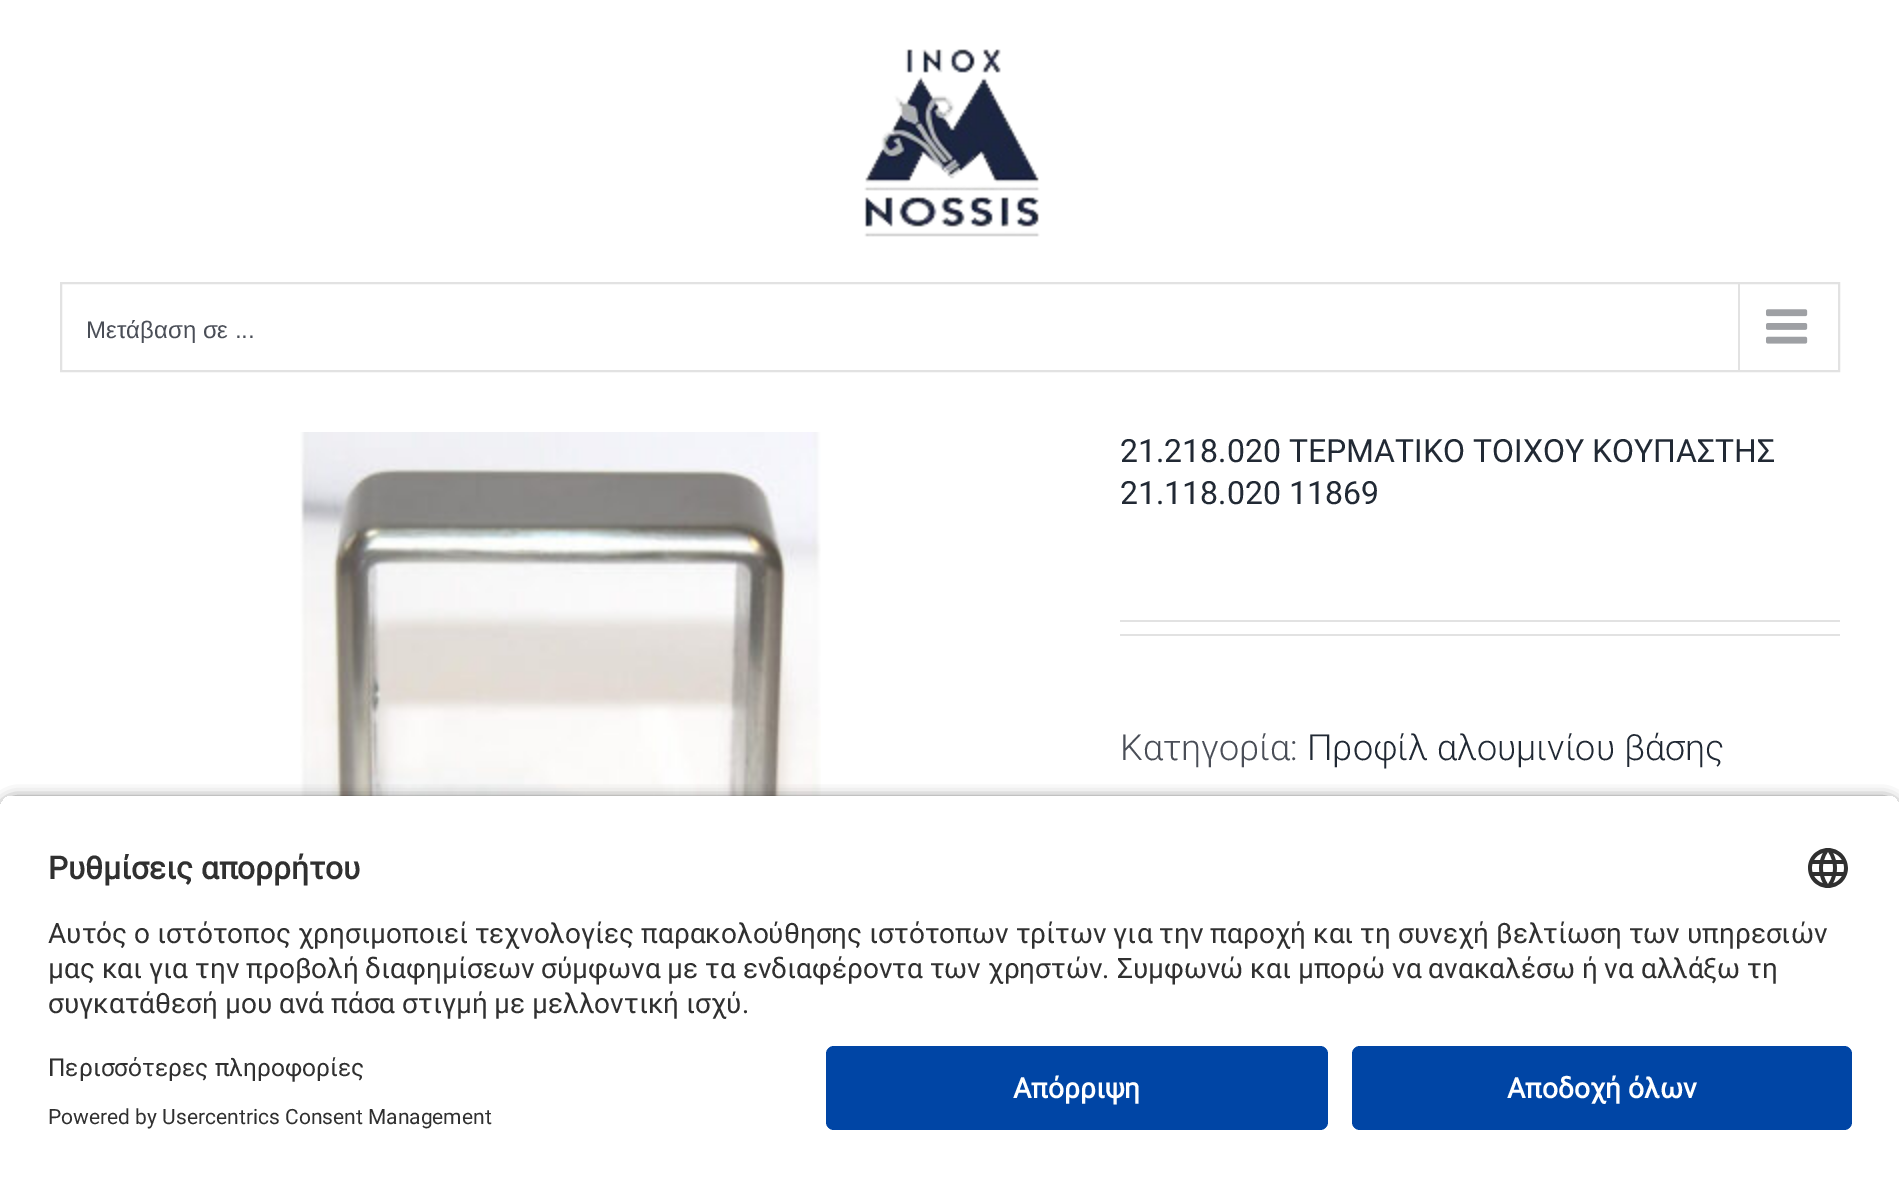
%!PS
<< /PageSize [1899 1177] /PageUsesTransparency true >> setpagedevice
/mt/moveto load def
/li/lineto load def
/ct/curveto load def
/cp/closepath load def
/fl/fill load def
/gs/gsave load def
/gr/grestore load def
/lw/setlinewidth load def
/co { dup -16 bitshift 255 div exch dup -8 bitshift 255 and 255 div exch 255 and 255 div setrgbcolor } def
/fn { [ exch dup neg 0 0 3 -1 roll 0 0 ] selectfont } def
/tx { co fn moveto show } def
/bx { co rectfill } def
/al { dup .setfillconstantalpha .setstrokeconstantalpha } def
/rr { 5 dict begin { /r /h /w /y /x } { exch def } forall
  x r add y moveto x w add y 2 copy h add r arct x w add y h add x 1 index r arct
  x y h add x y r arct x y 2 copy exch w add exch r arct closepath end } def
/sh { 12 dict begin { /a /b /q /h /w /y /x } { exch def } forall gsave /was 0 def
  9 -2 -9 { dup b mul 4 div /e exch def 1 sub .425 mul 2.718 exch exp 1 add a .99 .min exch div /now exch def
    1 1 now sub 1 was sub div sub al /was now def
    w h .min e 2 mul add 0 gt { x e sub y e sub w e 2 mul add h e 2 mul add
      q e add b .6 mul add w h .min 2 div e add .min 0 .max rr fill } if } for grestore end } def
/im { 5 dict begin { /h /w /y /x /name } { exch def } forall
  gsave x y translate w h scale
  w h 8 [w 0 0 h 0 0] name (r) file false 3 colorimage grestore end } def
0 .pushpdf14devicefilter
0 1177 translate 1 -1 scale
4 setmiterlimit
0 0 1899 1177 16#FFFFFF bx
(media/1.raw) 864 49 176 188 im
16#E2E2E2 co
2 lw
61 283 1778 88 rectstroke
1738 284 2 86 16#E2E2E2 bx
(media/2.raw) 1766 309 42 35 im
(media/3.raw) 300 432 521 364 im
1120 620 720 2 16#E2E2E2 bx
1120 634 720 2 16#E2E2E2 bx
16#000000 co
0 800 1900 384 16 7 .8 sh
gs
16 794 mt 1884 794 li 1893 794 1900 801 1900 810 ct 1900 1030 li 0 1030 li 0 810 li 0 801 7 794 16 794 ct cp clip newpath
0 796 1899 234 16#FFFFFF bx
gr
(media/4.raw) 1808 848 40 40 im
0 1030 1899 147 16#FFFFFF bx
16#0045A5 co
826 1046 502 84 8 rr fl
1352 1046 500 84 8 rr fl
(Μετάβαση σε ...) 86 338 /LiberationSans-Regular 24 16#4A4E57 tx
(21.218.020 ΤΕΡΜΑΤΙΚΟ ΤΟΙΧΟΥ ΚΟΥΠΑΣΤΗΣ) 1120 462 /Roboto-Regular 32 16#212934 tx
(21.118.020 11869) 1120 504 /Roboto-Regular 32 16#212934 tx
(Κατηγορία:) 1120 760 /Roboto-Light 36 16#4A4E57 tx
(Προφίλ αλουμινίου βάσης) 1307 760 /Roboto-Light 36 16#212934 tx
(Ρυθμίσεις απορρήτου) 48 879 /Roboto-Bold 31.5 16#303030 tx
(Αυτός ο ιστότοπος χρησιμοποιεί τεχνολογίες παρακολούθησης ιστότοπων τρίτων για την παροχή και τη συνεχή βελτίωση των υπηρεσιών) 48 943 /Roboto-Regular 28 16#303030 tx
(μας και για την προβολή διαφημίσεων σύμφωνα με τα ενδιαφέροντα των χρηστών. Συμφωνώ και μπορώ να ανακαλέσω ή να αλλάξω τη) 48 978 /Roboto-Regular 28 16#303030 tx
(συγκατάθεσή μου ανά πάσα στιγμή με μελλοντική ισχύ.) 48 1013 /Roboto-Regular 28 16#303030 tx
(Περισσότερες πληροφορίες) 48 1076 /Roboto-Regular 24.5 16#303030 tx
(Powered by Usercentrics Consent Management) 48 1124 /Roboto-Regular 21 16#303030 tx
(Απόρριψη) 1013 1098 /Roboto-Bold 28 16#FFFFFF tx
(Αποδοχή όλων) 1507 1098 /Roboto-Bold 28 16#FFFFFF tx
.poppdf14devicefilter showpage
